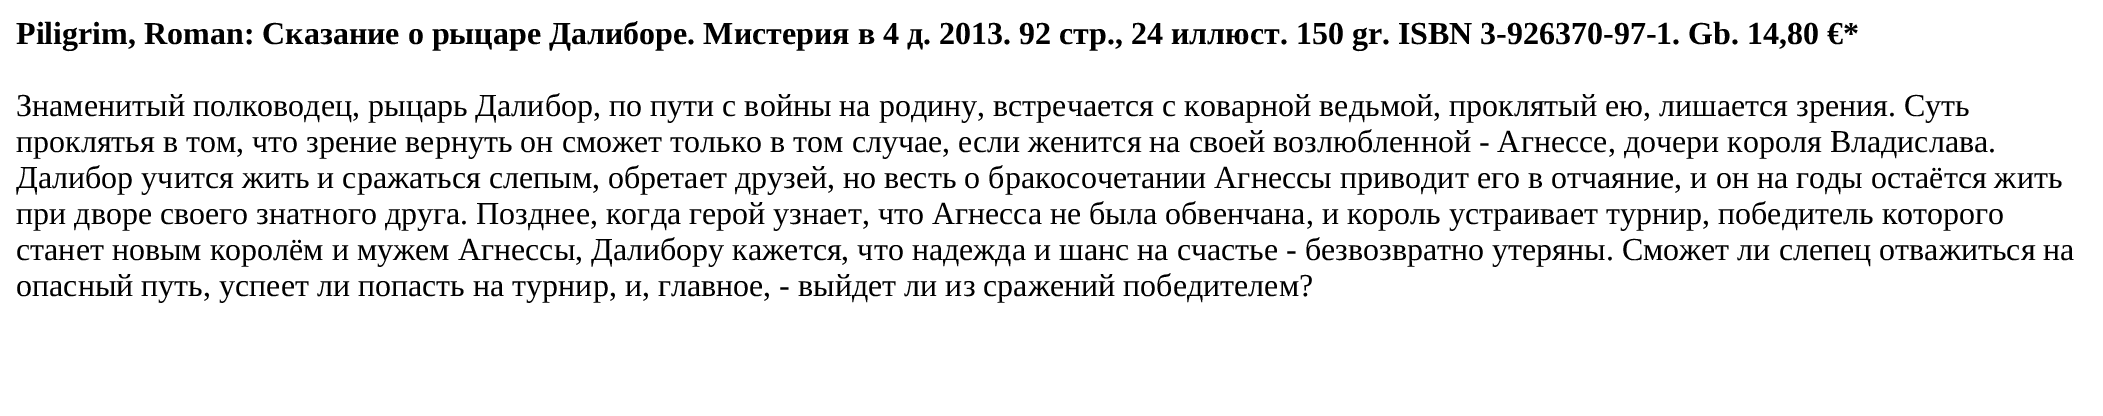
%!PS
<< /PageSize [2103 416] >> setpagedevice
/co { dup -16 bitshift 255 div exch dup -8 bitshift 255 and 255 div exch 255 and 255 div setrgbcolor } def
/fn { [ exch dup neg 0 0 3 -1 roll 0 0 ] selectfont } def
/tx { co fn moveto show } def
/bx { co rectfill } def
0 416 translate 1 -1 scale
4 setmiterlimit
0 0 2103 416 16#FFFFFF bx
(Piligrim, Roman: Сказание о рыцаре Далиборе. Мистерия в 4 д. 2013. 92 стр., 24 иллюст. 150 gr. ISBN 3-926370-97-1. Gb. 14,80 €*) 16 44 /LiberationSerif-Bold 32 16#000000 tx
(Знаменитый полководец, рыцарь Далибор, по пути с войны на родину, встречается с коварной ведьмой, проклятый ею, лишается зрения. Суть) 16 116 /LiberationSerif-Regular 32 16#000000 tx
(проклятья в том, что зрение вернуть он сможет только в том случае, если женится на своей возлюбленной - Агнессе, дочери короля Владислава.) 16 152 /LiberationSerif-Regular 32 16#000000 tx
(Далибор учится жить и сражаться слепым, обретает друзей, но весть о бракосочетании Агнессы приводит его в отчаяние, и он на годы остаётся жить) 16 188 /LiberationSerif-Regular 32 16#000000 tx
(при дворе своего знатного друга. Позднее, когда герой узнает, что Агнесса не была обвенчана, и король устраивает турнир, победитель которого) 16 224 /LiberationSerif-Regular 32 16#000000 tx
(станет новым королём и мужем Агнессы, Далибору кажется, что надежда и шанс на счастье - безвозвратно утеряны. Сможет ли слепец отважиться на) 16 260 /LiberationSerif-Regular 32 16#000000 tx
(опасный путь, успеет ли попасть на турнир, и, главное, - выйдет ли из сражений победителем?) 16 296 /LiberationSerif-Regular 32 16#000000 tx
showpage
